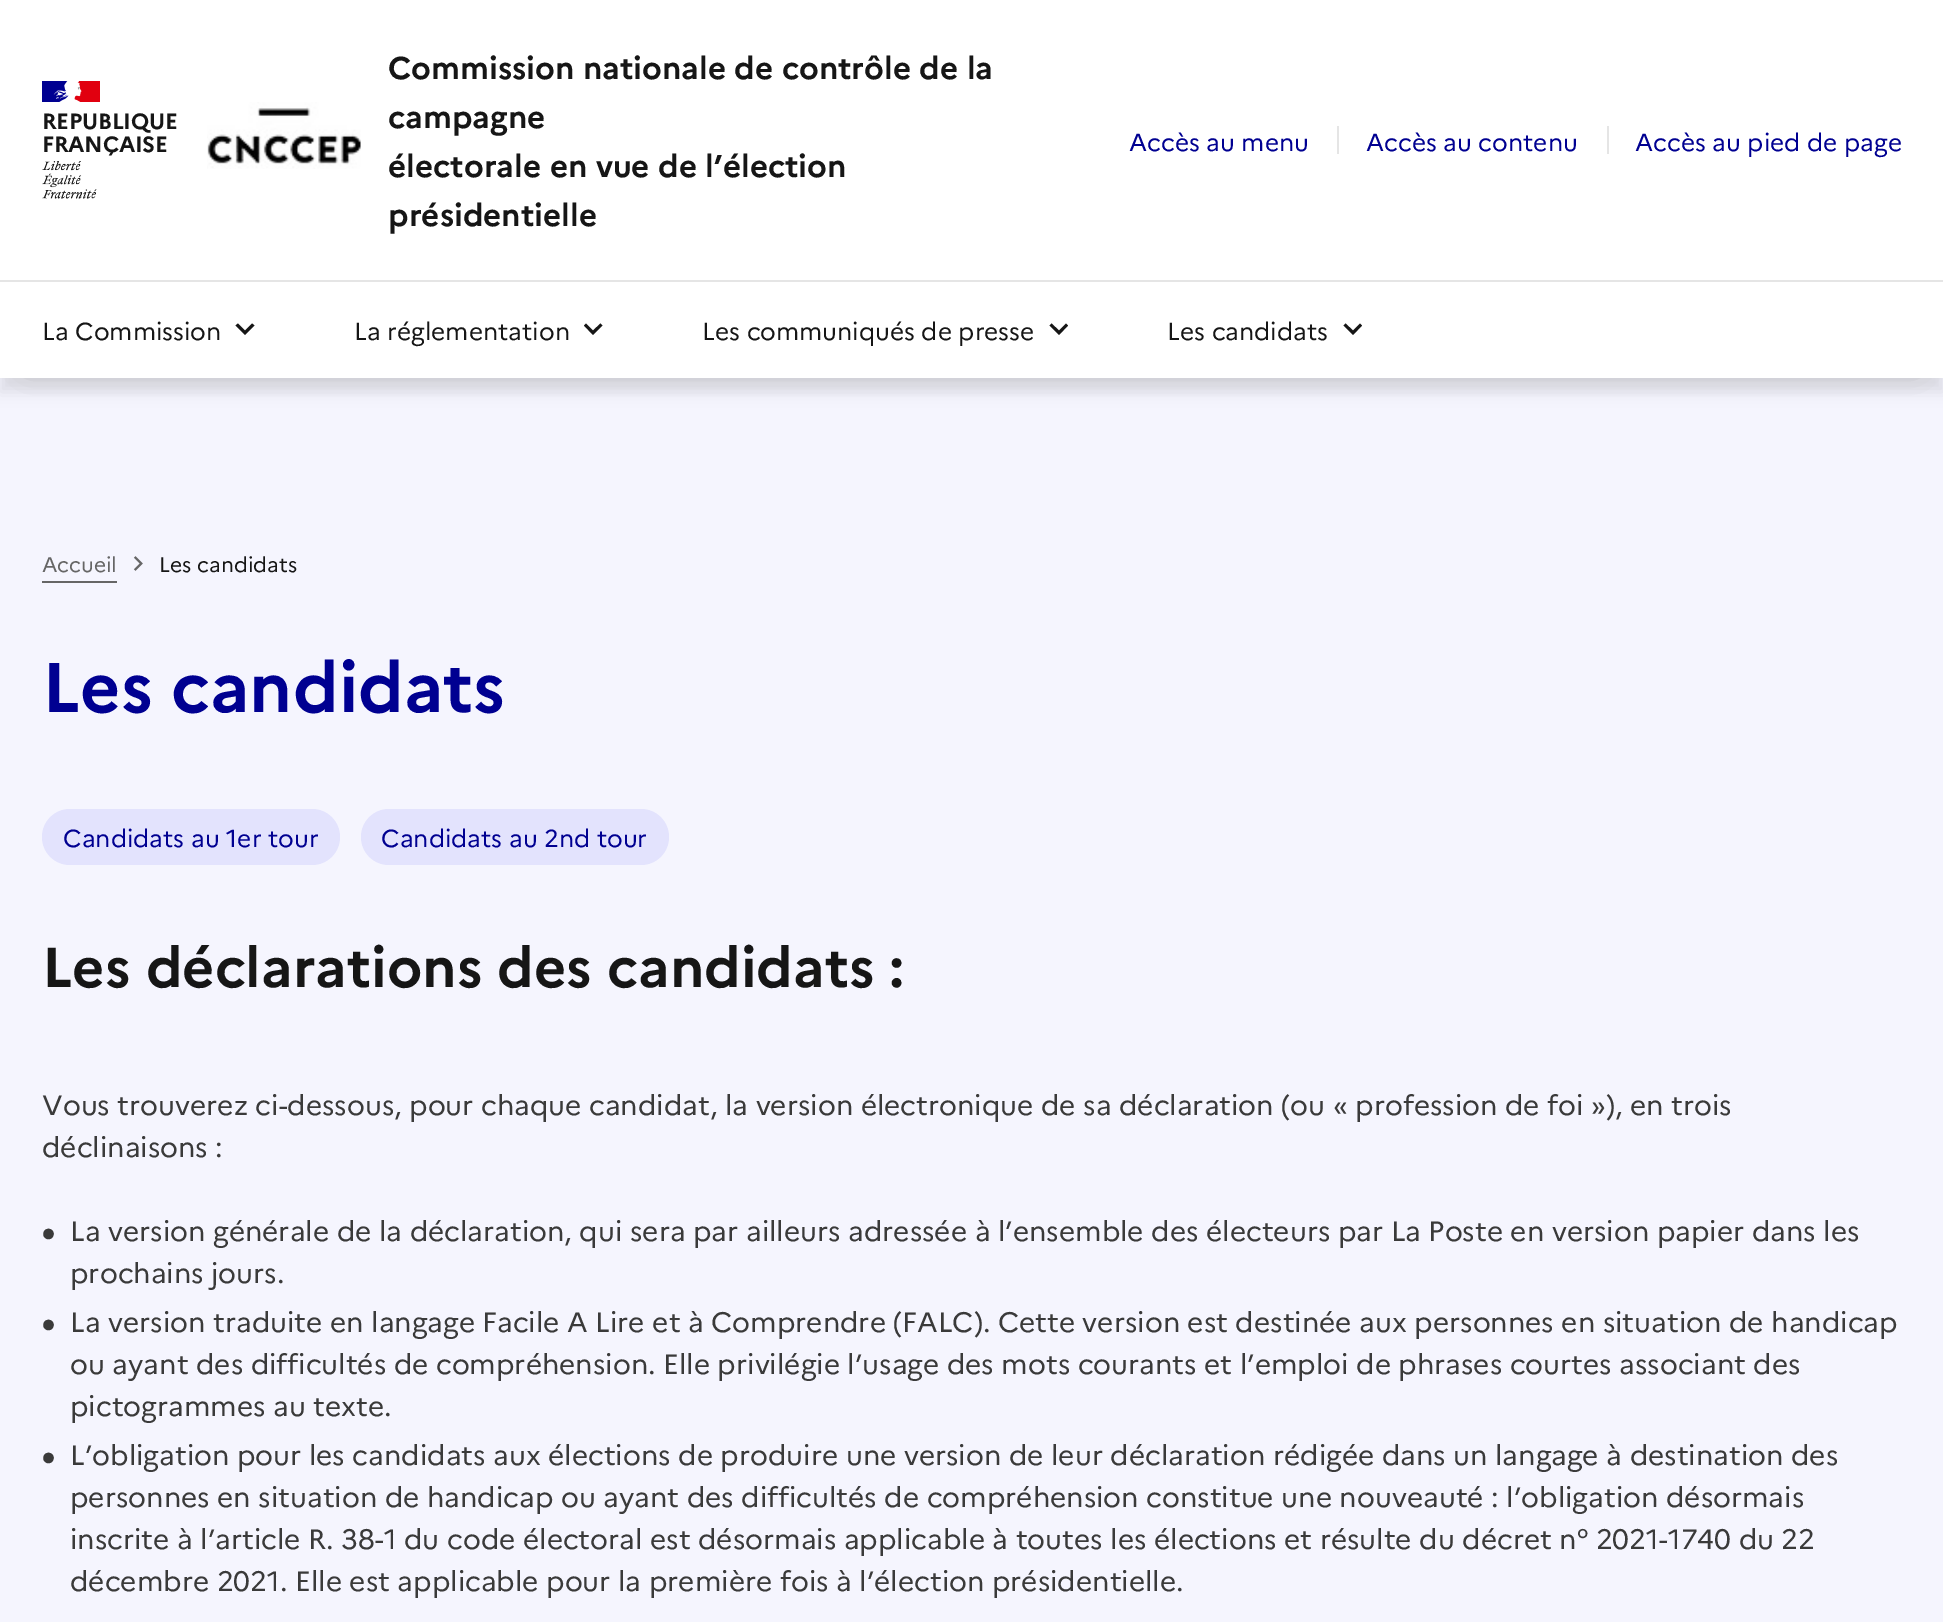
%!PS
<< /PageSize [1943 1622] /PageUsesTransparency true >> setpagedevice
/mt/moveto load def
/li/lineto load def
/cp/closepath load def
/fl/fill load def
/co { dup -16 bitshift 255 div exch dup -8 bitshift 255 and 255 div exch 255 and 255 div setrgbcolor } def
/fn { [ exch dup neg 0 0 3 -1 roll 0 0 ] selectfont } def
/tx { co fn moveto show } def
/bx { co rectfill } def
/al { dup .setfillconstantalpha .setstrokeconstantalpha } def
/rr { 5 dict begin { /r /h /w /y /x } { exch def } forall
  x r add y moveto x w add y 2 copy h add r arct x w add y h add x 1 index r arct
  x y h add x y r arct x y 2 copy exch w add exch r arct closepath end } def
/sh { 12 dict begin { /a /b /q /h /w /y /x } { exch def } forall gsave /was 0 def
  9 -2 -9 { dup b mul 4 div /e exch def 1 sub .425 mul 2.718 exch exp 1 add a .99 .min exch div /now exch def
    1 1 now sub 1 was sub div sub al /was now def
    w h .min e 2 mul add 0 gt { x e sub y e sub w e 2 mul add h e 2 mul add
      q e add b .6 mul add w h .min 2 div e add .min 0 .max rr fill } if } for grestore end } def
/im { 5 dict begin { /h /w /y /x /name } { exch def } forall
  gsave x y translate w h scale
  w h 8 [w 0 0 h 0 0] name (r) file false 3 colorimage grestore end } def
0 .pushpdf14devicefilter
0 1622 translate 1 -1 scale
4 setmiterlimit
0 0 1943 1622 16#F5F5FE bx
16#000000 co
28 42 1888 322 0 14 .32 sh
0 14 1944 378 0 7 .1 sh
0 0 1943 378 16#FFFFFF bx
42 81 27 21 16#000091 bx
74 81 26 21 16#E1000F bx
(media/1.raw) 53 81 29 21 im
(media/2.raw) 42 161 55 38 im
(media/3.raw) 207 102 154 67 im
1337 126 2 28 16#E5E5E5 bx
1607 126 2 28 16#E5E5E5 bx
0 280 1943 2 16#E5E5E5 bx
16#161616 co
245 330.5 mt 252 323.5 li 254.5 325.5 li 245 335 li 235.5 325.5 li 238 323.5 li cp fl
593 330.5 mt 600.5 323.5 li 602.5 325.5 li 593 335 li 584 325.5 li 586 323.5 li cp fl
1059 330.5 mt 1066 323.5 li 1068 325.5 li 1059 335 li 1049.5 325.5 li 1051.5 323.5 li cp fl
1353 330.5 mt 1360 323.5 li 1362 325.5 li 1353 335 li 1343.5 325.5 li 1345.5 323.5 li cp fl
42 581 75 2 16#666666 bx
(media/4.raw) 133 556 10 15 im
16#E3E3FD co
42 809 298 56 28 rr fl
361 809 308 56 28 rr fl
/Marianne-Bold 22 fn
16#161616 co
42 129 mt -.25 0 (REPUBLIQUE) ashow
42 152 mt -.25 0 (FRANÇAISE) ashow
(Commission nationale de contrôle de la) 388 79 /Marianne-Bold 31.4 16#161616 tx
(campagne) 388 128 /Marianne-Bold 31.4 16#161616 tx
(électorale en vue de l’élection) 388 177 /Marianne-Bold 31.4 16#161616 tx
(présidentielle) 388 226 /Marianne-Bold 31.4 16#161616 tx
(Accès au menu) 1129 151 /Marianne-Regular 24.5 16#000091 tx
(Accès au contenu) 1366 151 /Marianne-Regular 24.5 16#000091 tx
(Accès au pied de page) 1635 151 /Marianne-Regular 24.5 16#000091 tx
(La Commission) 42 340 /Marianne-Regular 24.5 16#161616 tx
(La réglementation) 354 340 /Marianne-Regular 24.5 16#161616 tx
(Les communiqués de presse) 702 340 /Marianne-Regular 24.5 16#161616 tx
(Les candidats) 1167 340 /Marianne-Regular 24.5 16#161616 tx
(Accueil) 42 572 /Marianne-Regular 21 16#666666 tx
(Les candidats) 159 572 /Marianne-Regular 21 16#161616 tx
(Les candidats) 42 712 /Marianne-Bold 70 16#000091 tx
(Candidats au 1er tour) 63 847 /Marianne-Regular 24.5 16#000091 tx
(Candidats au 2nd tour) 381 847 /Marianne-Regular 24.5 16#000091 tx
(Les déclarations des candidats :) 42 987 /Marianne-Bold 56 16#161616 tx
(Vous trouverez ci-dessous, pour chaque candidat, la version électronique de sa déclaration \(ou « profession de foi »\), en trois) 42 1115 /Marianne-Regular 28 16#3A3A3A tx
(déclinaisons :) 42 1157 /Marianne-Regular 28 16#3A3A3A tx
(●) 41 1241 /LiberationSans-Regular 25 16#3A3A3A tx
(La version générale de la déclaration, qui sera par ailleurs adressée à l’ensemble des électeurs par La Poste en version papier dans les) 70 1241 /Marianne-Regular 28 16#3A3A3A tx
(prochains jours.) 70 1283 /Marianne-Regular 28 16#3A3A3A tx
(●) 41 1332 /LiberationSans-Regular 25 16#3A3A3A tx
(La version traduite en langage Facile A Lire et à Comprendre \(FALC\). Cette version est destinée aux personnes en situation de handicap) 70 1332 /Marianne-Regular 28 16#3A3A3A tx
(ou ayant des difficultés de compréhension. Elle privilégie l’usage des mots courants et l’emploi de phrases courtes associant des) 70 1374 /Marianne-Regular 28 16#3A3A3A tx
(pictogrammes au texte.) 70 1416 /Marianne-Regular 28 16#3A3A3A tx
(●) 41 1465 /LiberationSans-Regular 25 16#3A3A3A tx
(L’obligation pour les candidats aux élections de produire une version de leur déclaration rédigée dans un langage à destination des) 70 1465 /Marianne-Regular 28 16#3A3A3A tx
(personnes en situation de handicap ou ayant des difficultés de compréhension constitue une nouveauté : l’obligation désormais) 70 1507 /Marianne-Regular 28 16#3A3A3A tx
(inscrite à l’article R. 38-1 du code électoral est désormais applicable à toutes les élections et résulte du décret n° 2021-1740 du 22) 70 1549 /Marianne-Regular 28 16#3A3A3A tx
(décembre 2021. Elle est applicable pour la première fois à l’élection présidentielle.) 70 1591 /Marianne-Regular 28 16#3A3A3A tx
.poppdf14devicefilter showpage
